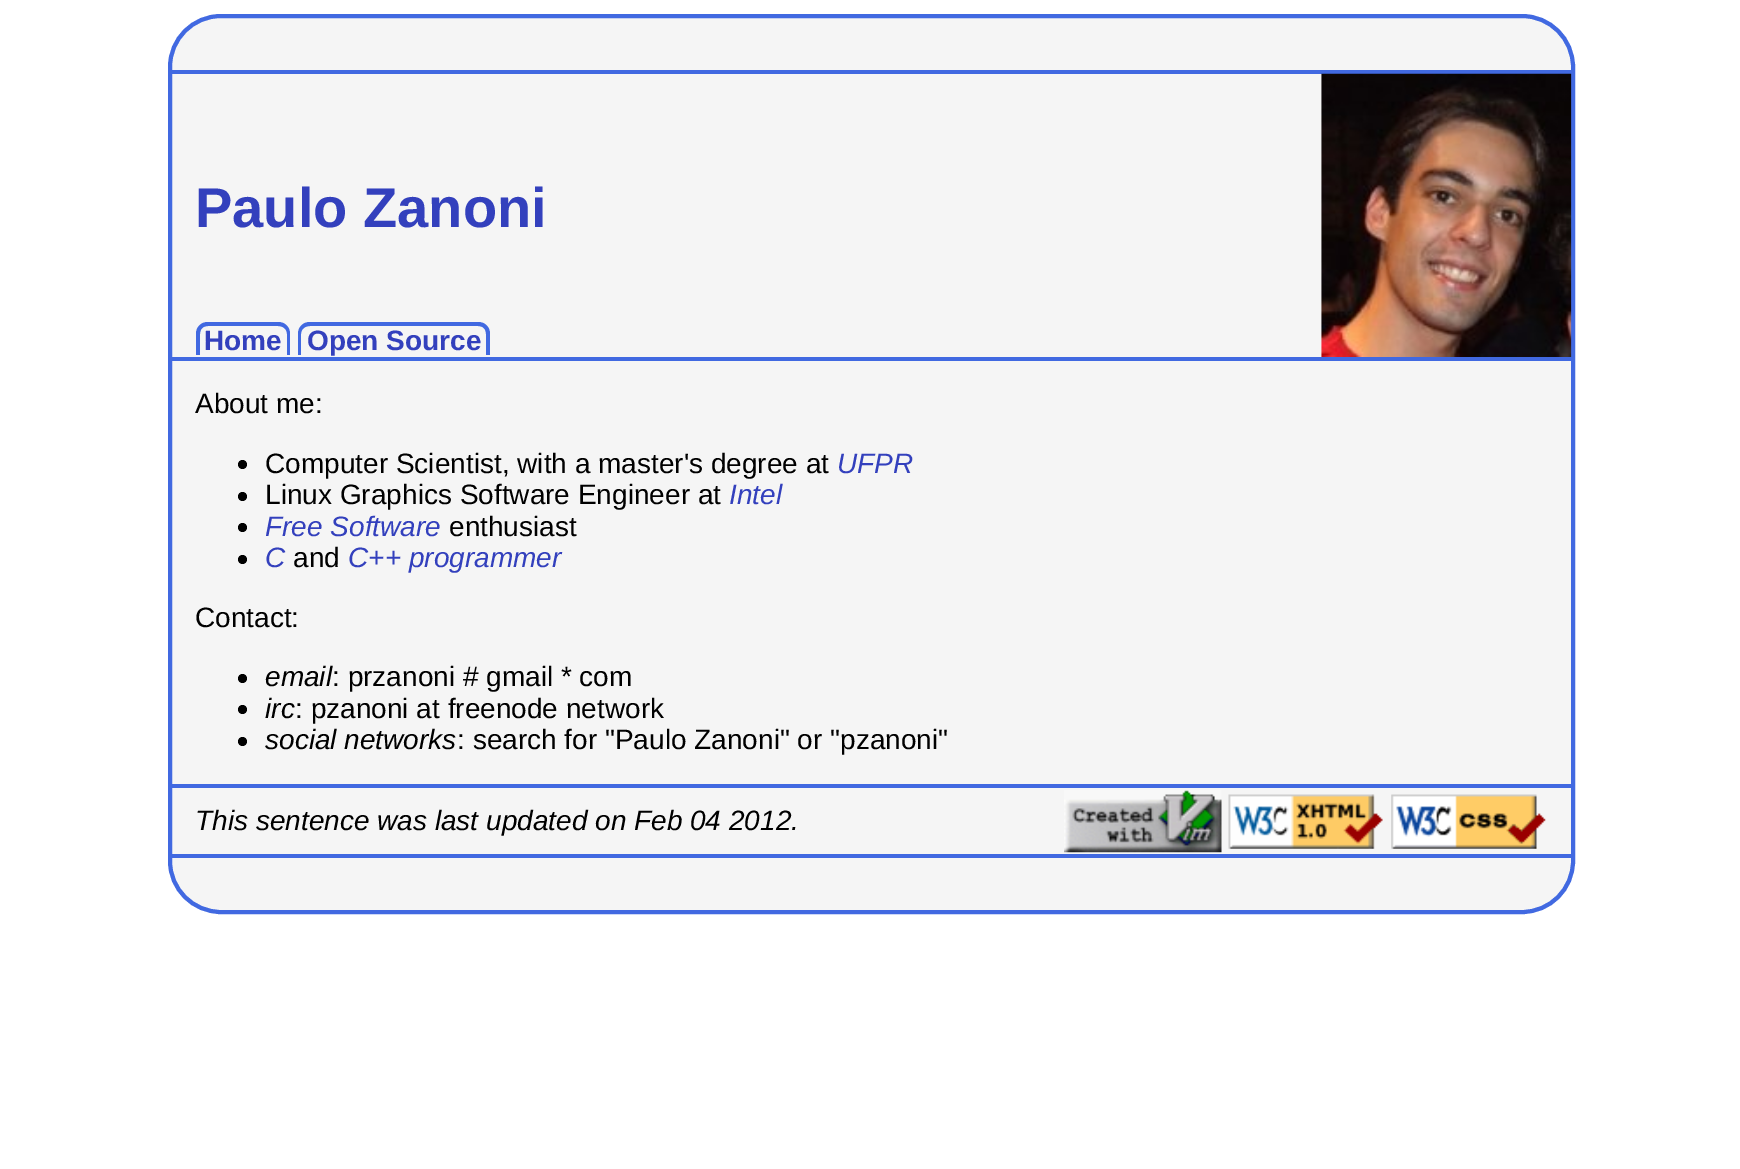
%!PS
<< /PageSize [1740 1169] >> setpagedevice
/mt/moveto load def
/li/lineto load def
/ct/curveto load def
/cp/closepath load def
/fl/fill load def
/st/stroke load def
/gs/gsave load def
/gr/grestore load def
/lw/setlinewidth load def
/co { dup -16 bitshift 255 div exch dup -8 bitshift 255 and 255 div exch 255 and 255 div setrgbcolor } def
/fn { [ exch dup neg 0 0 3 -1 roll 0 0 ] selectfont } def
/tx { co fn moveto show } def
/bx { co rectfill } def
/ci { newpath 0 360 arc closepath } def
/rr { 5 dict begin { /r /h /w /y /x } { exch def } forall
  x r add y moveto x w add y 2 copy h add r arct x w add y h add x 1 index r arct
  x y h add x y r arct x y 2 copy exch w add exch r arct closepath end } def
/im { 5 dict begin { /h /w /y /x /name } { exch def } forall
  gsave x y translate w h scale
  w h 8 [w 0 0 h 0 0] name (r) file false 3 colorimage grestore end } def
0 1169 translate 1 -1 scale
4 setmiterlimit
0 0 1740 1169 16#FFFFFF bx
16#F5F5F5 co
170 16 1403 896 51 rr gs fl gr
16#4169E1 co
4 lw
st
172 70 1400 4 16#4169E1 bx
172 357 1400 4 16#4169E1 bx
(media/1.raw) 1321 73 251 284 im
208 322 mt 278 322 li 285 322 290 327 290 334 ct 290 355 li 196 355 li 196 334 li 196 327 201 322 208 322 ct cp 208 326 mt 278 326 li 283 326 287 329 287 334 ct 287 355 li 200 355 li 200 334 li 200 329 203 326 208 326 ct cp eofill
310 322 mt 478 322 li 485 322 490 327 490 334 ct 490 355 li 298 355 li 298 334 li 298 327 303 322 310 322 ct cp 310 326 mt 478 326 li 483 326 486 329 486 334 ct 486 355 li 301 355 li 301 334 li 301 329 305 326 310 326 ct cp eofill
16#000000 co
242.5 464.5 4.5 ci fl
242.5 496.5 4.5 ci fl
242.5 527.5 4.5 ci fl
242.5 559.5 4.5 ci fl
242.5 678.5 4.5 ci fl
242.5 709.5 4.5 ci fl
242.5 741.5 4.5 ci fl
172 784 1400 4 16#4169E1 bx
172 854 1400 4 16#4169E1 bx
(media/2.raw) 1064 790 158 63 im
(media/3.raw) 1228 794 155 55 im
(media/4.raw) 1391 794 155 55 im
(Paulo Zanoni) 195 227 /LiberationSans-Bold 56 16#3340BD tx
(Home) 204 350 /LiberationSans-Bold 28 16#3340BD tx
(Open Source) 307 350 /LiberationSans-Bold 28 16#3340BD tx
(About me:) 195 413 /LiberationSans-Regular 28 16#000000 tx
(Computer Scientist, with a master's degree at) 265 473 /LiberationSans-Regular 28 16#000000 tx
(UFPR) 837 473 /LiberationSans-Italic 28 16#3340BD tx
(Linux Graphics Software Engineer at) 265 504 /LiberationSans-Regular 28 16#000000 tx
(Intel) 729 504 /LiberationSans-Italic 28 16#3340BD tx
(Free Software) 265 536 /LiberationSans-Italic 28 16#3340BD tx
(enthusiast) 449 536 /LiberationSans-Regular 28 16#000000 tx
(C) 265 567 /LiberationSans-Italic 28 16#3340BD tx
(and) 293 567 /LiberationSans-Regular 28 16#000000 tx
(C++ programmer) 348 567 /LiberationSans-Italic 28 16#3340BD tx
(Contact:) 195 627 /LiberationSans-Regular 28 16#000000 tx
(email) 265 686 /LiberationSans-Italic 28 16#000000 tx
(: przanoni # gmail * com) 332 686 /LiberationSans-Regular 28 16#000000 tx
(irc) 265 718 /LiberationSans-Italic 28 16#000000 tx
(: pzanoni at freenode network) 295 718 /LiberationSans-Regular 28 16#000000 tx
(social networks) 265 749 /LiberationSans-Italic 28 16#000000 tx
(: search for "Paulo Zanoni" or "pzanoni") 457 749 /LiberationSans-Regular 28 16#000000 tx
(This sentence was last updated on Feb 04 2012.) 195 830 /LiberationSans-Italic 28 16#000000 tx
showpage
